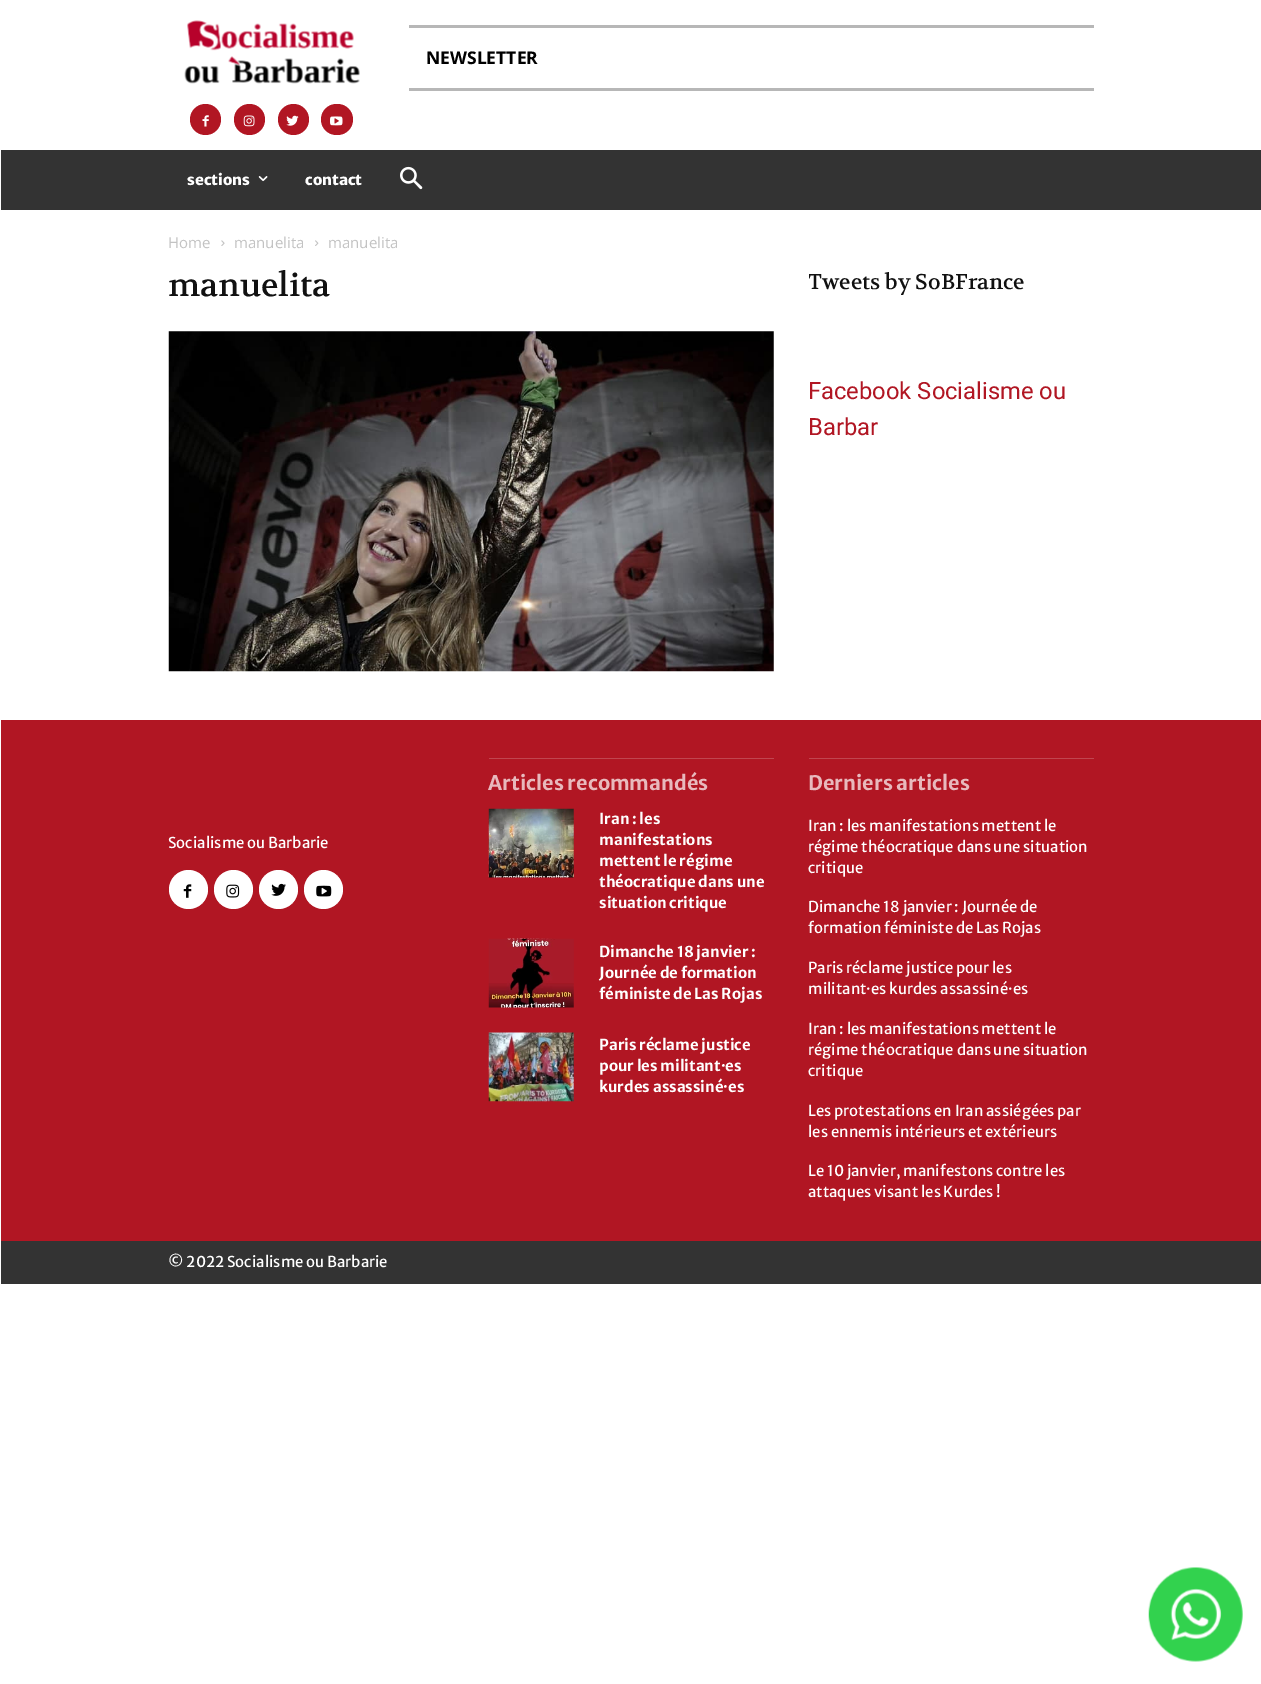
%!PS
<< /PageSize [1261 1684] >> setpagedevice
/fl/fill load def
/gs/gsave load def
/gr/grestore load def
/co { dup -16 bitshift 255 div exch dup -8 bitshift 255 and 255 div exch 255 and 255 div setrgbcolor } def
/fn { [ exch dup neg 0 0 3 -1 roll 0 0 ] selectfont } def
/tx { co fn moveto show } def
/bx { co rectfill } def
/ci { newpath 0 360 arc closepath } def
/rr { 5 dict begin { /r /h /w /y /x } { exch def } forall
  x r add y moveto x w add y 2 copy h add r arct x w add y h add x 1 index r arct
  x y h add x y r arct x y 2 copy exch w add exch r arct closepath end } def
/im { 5 dict begin { /h /w /y /x /name } { exch def } forall
  gsave x y translate w h scale
  w h 8 [w 0 0 h 0 0] name (r) file false 3 colorimage grestore end } def
0 1684 translate 1 -1 scale
4 setmiterlimit
0 0 1261 1684 16#FFFFFF bx
(media/1.raw) 184 20 176 64 im
16#B11623 co
205.5 119.5 15.5 ci fl
(media/2.raw) 202 115 7 12 im
249.5 119.5 15.5 ci fl
(media/3.raw) 243 115 12 12 im
293.5 119.5 15.5 ci fl
(media/4.raw) 286 115 13 11 im
321 104 32 31 15.5 rr fl
(media/5.raw) 330 116 13 10 im
409 25 685 3 16#B7B7B7 bx
409 88 685 3 16#B7B7B7 bx
1 150 1260 60 16#333333 bx
(media/6.raw) 258 176 10 6 im
(media/7.raw) 400 166 23 24 im
(media/8.raw) 221 240 4 6 im
(media/9.raw) 315 240 4 6 im
(media/10.raw) 168 331 606 341 im
1 720 1260 521 16#B11623 bx
16#FFFFFF co
188.5 889.5 19.5 ci fl
(media/11.raw) 183 884 9 14 im
233.5 889.5 19.5 ci fl
(media/12.raw) 226 884 14 14 im
278.5 889.5 19.5 ci fl
(media/13.raw) 271 883 15 13 im
323.5 889.5 19.5 ci fl
(media/14.raw) 316 885 16 12 im
489 758 285 1 16#C1454F bx
(media/15.raw) 488 808 86 70 im
(media/16.raw) 488 938 86 70 im
(media/17.raw) 488 1032 86 70 im
809 758 285 1 16#C1454F bx
1 1241 1260 43 16#333333 bx
(media/18.raw) 1148 1567 95 95 im
(NEWSLETTER) 426 64 /OpenSans-Bold 17.5 16#000000 tx
(sections) 187 185 /MerriweatherSans-ExtraBold 15 16#FFFFFF tx
(contact) 305 185 /MerriweatherSans-ExtraBold 15 16#FFFFFF tx
(Home) 168 248 /OpenSans-Regular 15 16#C3C3C3 tx
(manuelita) 234 248 /OpenSans-Regular 15 16#C3C3C3 tx
(manuelita) 328 248 /OpenSans-Regular 15 16#C3C3C3 tx
(manuelita) 168 296 /Volkhov-Regular 32.5 16#111111 tx
gs
809 268 285 27 rectclip
(Tweets by SoBFrance) 808 289 /Volkhov-Regular 21.25 16#111111 tx
gr
(Facebook Socialisme ou) 808 399 /Roboto-Regular 23.75 16#B11623 tx
(Barbar) 808 435 /Roboto-Regular 23.75 16#B11623 tx
(Socialisme ou Barbarie) 168 848 /MerriweatherSans-Regular 15 16#FFFFFF tx
(Articles recommandés) 488 790 /MerriweatherSans-Bold 20 16#E8B9BD tx
(Iran : les) 599 824 /MerriweatherSans-Bold 15 16#FFFFFF tx
(manifestations) 599 845 /MerriweatherSans-Bold 15 16#FFFFFF tx
(mettent le régime) 599 866 /MerriweatherSans-Bold 15 16#FFFFFF tx
(théocratique dans une) 599 887 /MerriweatherSans-Bold 15 16#FFFFFF tx
(situation critique) 599 908 /MerriweatherSans-Bold 15 16#FFFFFF tx
(Dimanche 18 janvier :) 599 957 /MerriweatherSans-Bold 15 16#FFFFFF tx
(Journée de formation) 599 978 /MerriweatherSans-Bold 15 16#FFFFFF tx
(féministe de Las Rojas) 599 999 /MerriweatherSans-Bold 15 16#FFFFFF tx
(Paris réclame justice) 599 1050 /MerriweatherSans-Bold 15 16#FFFFFF tx
(pour les militant·es) 599 1071 /MerriweatherSans-Bold 15 16#FFFFFF tx
(kurdes assassiné·es) 599 1092 /MerriweatherSans-Bold 15 16#FFFFFF tx
(Derniers articles) 808 790 /MerriweatherSans-Bold 20 16#E8B9BD tx
(Iran : les manifestations mettent le) 808 831 /MerriweatherSans-Regular 15 16#FFFFFF tx
(régime théocratique dans une situation) 808 852 /MerriweatherSans-Regular 15 16#FFFFFF tx
(critique) 808 873 /MerriweatherSans-Regular 15 16#FFFFFF tx
(Dimanche 18 janvier : Journée de) 808 912 /MerriweatherSans-Regular 15 16#FFFFFF tx
(formation féministe de Las Rojas) 808 933 /MerriweatherSans-Regular 15 16#FFFFFF tx
(Paris réclame justice pour les) 808 973 /MerriweatherSans-Regular 15 16#FFFFFF tx
(militant·es kurdes assassiné·es) 808 994 /MerriweatherSans-Regular 15 16#FFFFFF tx
(Iran : les manifestations mettent le) 808 1034 /MerriweatherSans-Regular 15 16#FFFFFF tx
(régime théocratique dans une situation) 808 1055 /MerriweatherSans-Regular 15 16#FFFFFF tx
(critique) 808 1076 /MerriweatherSans-Regular 15 16#FFFFFF tx
(Les protestations en Iran assiégées par) 808 1116 /MerriweatherSans-Regular 15 16#FFFFFF tx
(les ennemis intérieurs et extérieurs) 808 1137 /MerriweatherSans-Regular 15 16#FFFFFF tx
(Le 10 janvier, manifestons contre les) 808 1176 /MerriweatherSans-Regular 15 16#FFFFFF tx
(attaques visant les Kurdes !) 808 1197 /MerriweatherSans-Regular 15 16#FFFFFF tx
(© 2022 Socialisme ou Barbarie) 168 1267 /MerriweatherSans-Regular 15 16#FFFFFF tx
showpage
